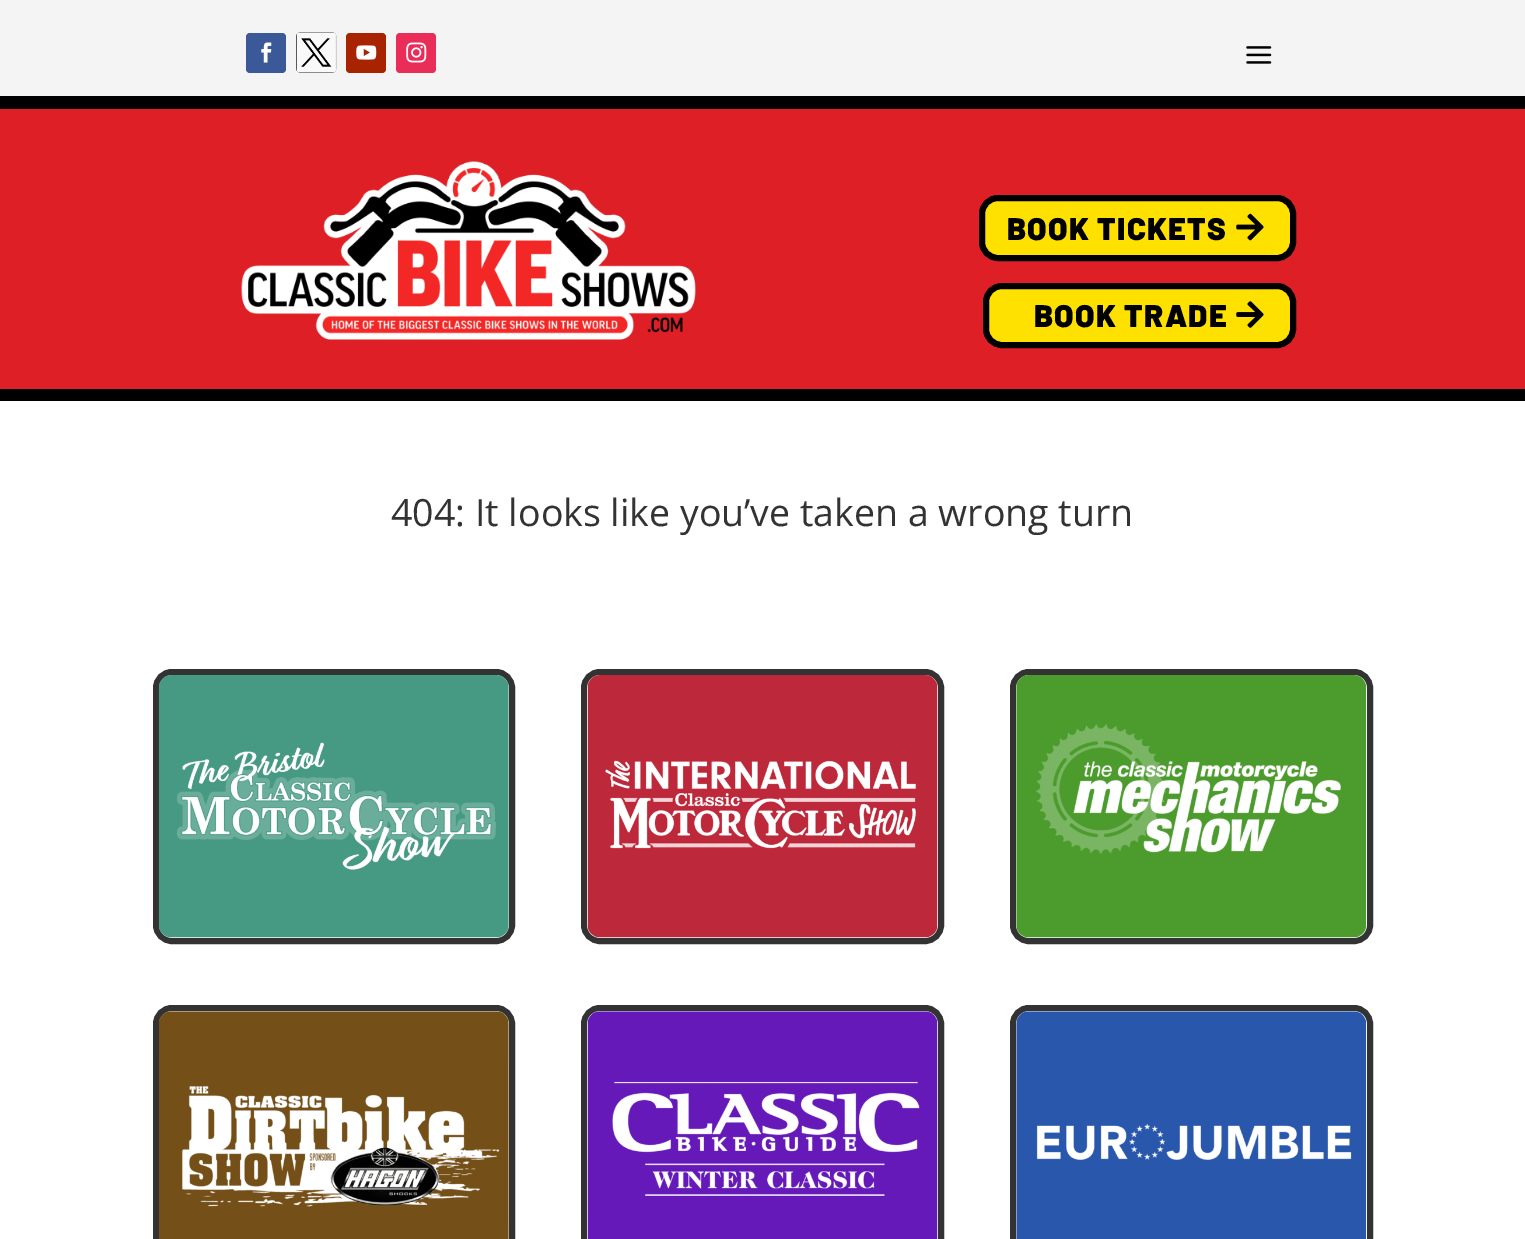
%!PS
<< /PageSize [1525 1239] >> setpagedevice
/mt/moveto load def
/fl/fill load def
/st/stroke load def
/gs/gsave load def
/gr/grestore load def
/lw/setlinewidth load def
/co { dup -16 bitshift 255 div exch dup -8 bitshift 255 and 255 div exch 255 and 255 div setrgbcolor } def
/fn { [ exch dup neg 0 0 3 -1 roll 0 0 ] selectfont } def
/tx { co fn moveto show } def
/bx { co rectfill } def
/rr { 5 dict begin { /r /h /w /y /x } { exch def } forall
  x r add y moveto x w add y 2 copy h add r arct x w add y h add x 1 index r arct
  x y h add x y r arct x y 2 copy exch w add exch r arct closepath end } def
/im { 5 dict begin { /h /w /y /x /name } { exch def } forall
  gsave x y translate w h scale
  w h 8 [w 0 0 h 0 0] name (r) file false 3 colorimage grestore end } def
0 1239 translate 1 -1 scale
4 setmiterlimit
0 0 1525 1239 16#FFFFFF bx
0 0 1525 96 16#F4F4F4 bx
0 96 1525 13 16#000000 bx
16#3B5998 co
246 33 40 40 4 rr fl
(media/1.raw) 261 42 11 21 im
(media/2.raw) 296 32 41 41 im
16#A82400 co
346 33 40 40 4 rr fl
(media/3.raw) 356 45 21 15 im
16#EA2C59 co
396 33 40 40 4 rr fl
(media/4.raw) 406 42 21 21 im
(media/5.raw) 1246 46 26 18 im
0 109 1525 280 16#DE1F26 bx
0 389 1525 12 16#000000 bx
(media/6.raw) 241 161 455 179 im
16#FFE100 co
982 198 311 60 16 rr gs fl gr
16#000000 co
6 lw
st
(media/7.raw) 1236 213 28 28 im
16#FFE100 co
986 286 307 59 16 rr gs fl gr
16#000000 co
st
(media/8.raw) 1236 301 28 27 im
16#333333 co
156 672 356 269 16 rr st
(media/9.raw) 158 675 351 263 im
584 672 357 269 16 rr st
(media/10.raw) 587 675 351 263 im
1013 672 357 269 16 rr st
(media/11.raw) 1016 675 351 263 im
156 1008 356 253 16 rr st
(media/12.raw) 159 1011 350 228 im
584 1008 357 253 16 rr st
(media/13.raw) 587 1011 351 228 im
1013 1008 357 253 16 rr st
(media/14.raw) 1016 1011 351 228 im
/Barlow-Black 31.25 fn
16#000000 co
1007 240 mt 1.25 0 (BOOK TICKETS) ashow
1034 327 mt 1.25 0 (BOOK TRADE) ashow
(404: It looks like you’ve taken a wrong turn) 391 526 /OpenSans-Regular 37.5 16#333333 tx
showpage
